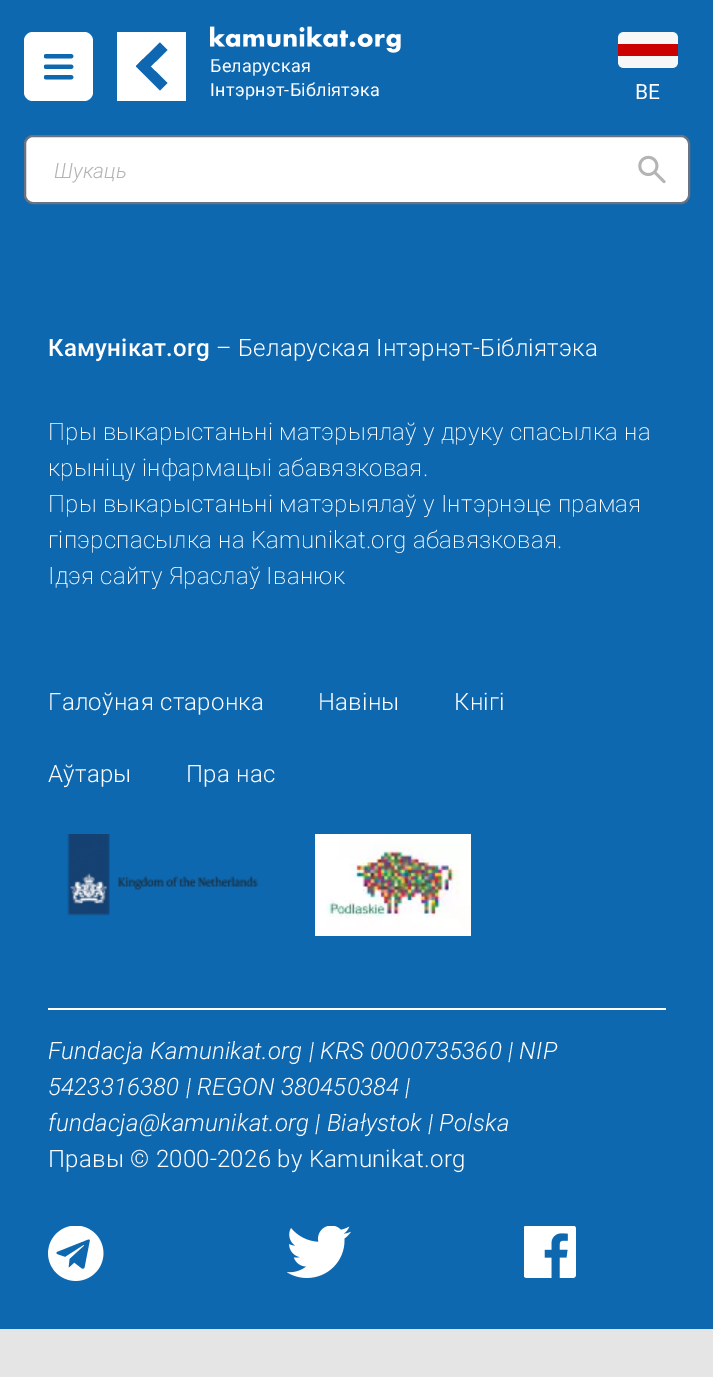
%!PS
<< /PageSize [713 1377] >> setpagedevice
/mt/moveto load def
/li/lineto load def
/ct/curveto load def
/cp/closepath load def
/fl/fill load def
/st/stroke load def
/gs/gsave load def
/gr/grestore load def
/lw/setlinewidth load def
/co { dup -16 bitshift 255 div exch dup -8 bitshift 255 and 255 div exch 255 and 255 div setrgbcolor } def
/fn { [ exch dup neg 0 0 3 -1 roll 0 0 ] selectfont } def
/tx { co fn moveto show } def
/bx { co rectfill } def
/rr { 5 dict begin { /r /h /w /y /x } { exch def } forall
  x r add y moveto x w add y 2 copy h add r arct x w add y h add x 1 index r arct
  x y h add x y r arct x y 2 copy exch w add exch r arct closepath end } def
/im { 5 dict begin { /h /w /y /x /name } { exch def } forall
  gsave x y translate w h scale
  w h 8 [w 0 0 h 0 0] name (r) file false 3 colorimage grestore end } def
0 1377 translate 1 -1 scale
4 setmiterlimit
0 0 713 1377 16#E5E5E5 bx
0 0 713 1329 16#0E68B0 bx
16#FFFFFF co
24 32 69 69 9 rr fl
(media/1.raw) 44 54 30 26 im
117 32 69 69 16#FFFFFF bx
16#0E67B0 co
136 66.5 mt 143 59 li 167.5 83 li 160 90.5 li cp fl
143.5 73.5 mt 136 66 li 160 42.5 li 167.5 50 li cp fl
(media/2.raw) 210 26 191 27 im
16#F7F7F7 co
624 32 mt 672 32 li 675.5 32 678 34.5 678 38 ct 678 44 li 618 44 li 618 38 li 618 34.5 620.5 32 624 32 ct cp fl
618 56 mt 678 56 li 678 62 li 678 65.5 675.5 68 672 68 ct 624 68 li 620.5 68 618 65.5 618 62 ct cp fl
618 44 60 12 16#CC0000 bx
16#FFFFFF co
25 136 664 67 8 rr gs fl gr
16#6B7280 co
2 lw
st
(media/3.raw) 638 155 28 29 im
(media/4.raw) 67 834 192 82 im
(media/5.raw) 315 834 156 102 im
48 1008 618 2 16#FFFFFF bx
(media/6.raw) 48 1226 56 55 im
(media/7.raw) 287 1226 64 52 im
(media/8.raw) 524 1226 52 52 im
/Roboto-Regular 18 fn
210 72 mt .25 0 (Беларуская) ashow
210 96 mt .25 0 (Інтэрнэт-Бібліятэка) ashow
/Roboto-Regular 21 fn
635 99 mt .25 0 (BE) ashow
(Шукаць) 54 178 /Roboto-LightItalic 21 16#B5B4B4 tx
/Roboto-Medium 24 fn
16#FFFFFF co
48 356 mt .25 0 (Камунікат.org) ashow
/Roboto-Light 24 fn
216 356 mt .25 0 (– Беларуская Інтэрнэт-Бібліятэка) ashow
/Roboto-ExtraLight 24 fn
48 440 mt .25 0 (Пры выкарыстаньні матэрыялаў у друку спасылка на) ashow
48 476 mt .25 0 (крыніцу інфармацыі абавязковая.) ashow
48 512 mt .25 0 (Пры выкарыстаньні матэрыялаў у Інтэрнэце прамая) ashow
48 548 mt .25 0 (гіпэрспасылка на Kamunikat.org абавязковая.) ashow
48 584 mt .25 0 (Ідэя сайту Яраслаў Іванюк) ashow
/Roboto-Light 24 fn
48 710 mt .25 0 (Галоўная старонка) ashow
318 710 mt .25 0 (Навіны) ashow
454 710 mt .25 0 (Кнігі) ashow
48 782 mt .25 0 (Аўтары) ashow
186 782 mt .25 0 (Пра нас) ashow
/Roboto-LightItalic 24 fn
48 1059 mt .25 0 (Fundacja Kamunikat.org | KRS 0000735360 | NIP) ashow
48 1095 mt .25 0 (5423316380 | REGON 380450384 |) ashow
48 1131 mt .25 0 (fundacja@kamunikat.org | Białystok | Polska) ashow
/Roboto-Light 24 fn
48 1167 mt .25 0 (Правы © 2000-2026 by Kamunikat.org) ashow
showpage
